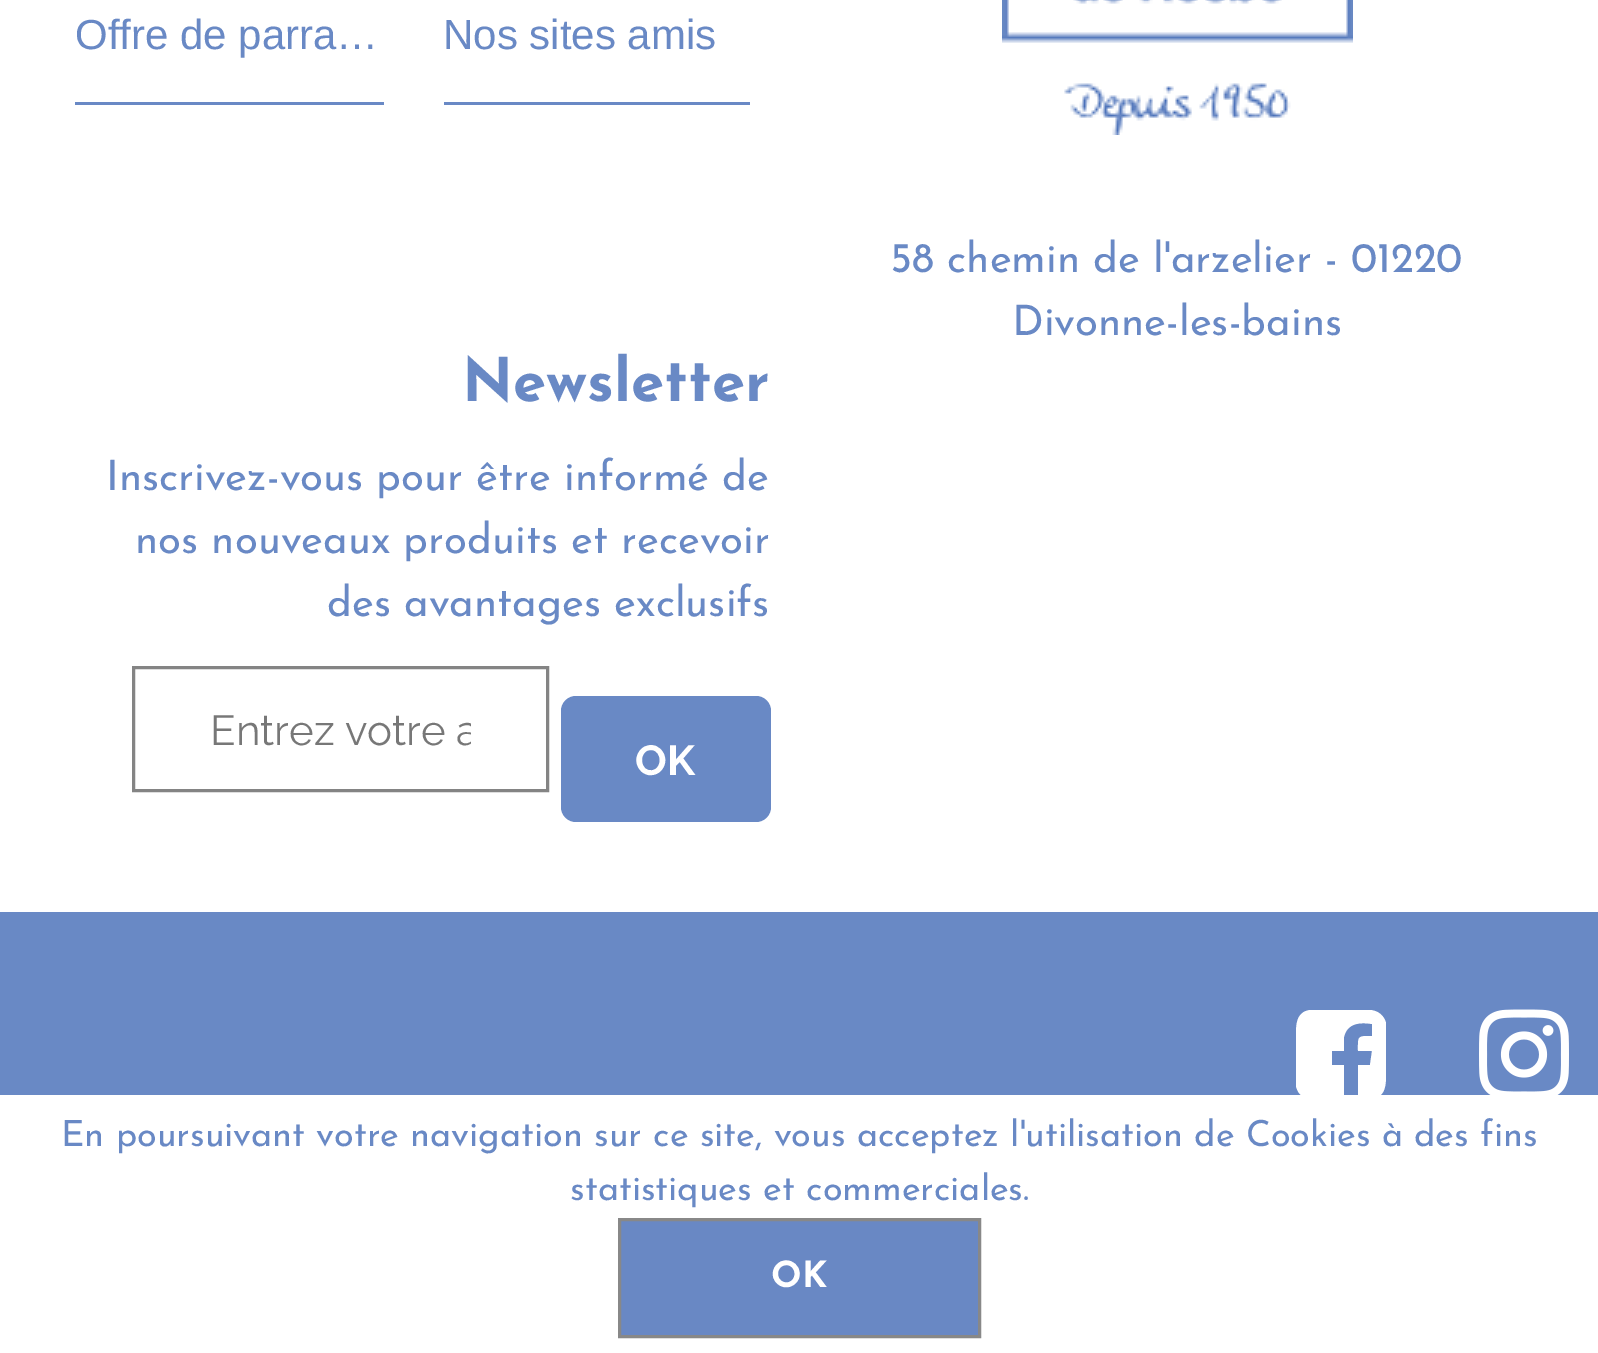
%!PS
<< /PageSize [1598 1353] >> setpagedevice
/mt/moveto load def
/li/lineto load def
/ct/curveto load def
/cp/closepath load def
/fl/fill load def
/st/stroke load def
/gs/gsave load def
/gr/grestore load def
/lw/setlinewidth load def
/co { dup -16 bitshift 255 div exch dup -8 bitshift 255 and 255 div exch 255 and 255 div setrgbcolor } def
/fn { [ exch dup neg 0 0 3 -1 roll 0 0 ] selectfont } def
/tx { co fn moveto show } def
/bx { co rectfill } def
/rr { 5 dict begin { /r /h /w /y /x } { exch def } forall
  x r add y moveto x w add y 2 copy h add r arct x w add y h add x 1 index r arct
  x y h add x y r arct x y 2 copy exch w add exch r arct closepath end } def
/im { 5 dict begin { /h /w /y /x /name } { exch def } forall
  gsave x y translate w h scale
  w h 8 [w 0 0 h 0 0] name (r) file false 3 colorimage grestore end } def
0 1353 translate 1 -1 scale
4 setmiterlimit
0 0 1598 1353 16#6989C5 bx
0 0 1598 912 16#FFFFFF bx
75 102 309 3 16#6989C5 bx
444 102 306 3 16#6989C5 bx
(media/1.raw) 1002 0 351 135 im
16#848484 co
3 lw
133.5 667.5 414 123 rectstroke
16#6989C5 co
561 696 210 126 15 rr fl
16#FFFFFF co
1369 1010 mt 1377 1010 1384 1015 1386 1023 ct 1386 1073 li 1386 1084 1386 1097 1372 1099 ct 1358 1100 li 1358 1065 li 1370 1065 li 1372 1051 li 1358 1051 li 1358 1036 1357 1036 1372 1036 ct 1372 1024 li 1360 1022 1347 1023 1344 1037 ct 1344 1051 li 1332 1051 li 1332 1065 li 1344 1065 li 1344 1100 li 1323 1100 li 1312 1100 1299 1100 1296 1086 ct 1296 1036 li 1296 1025 1296 1012 1310 1010 ct cp fl
(media/2.raw) 1479 1009 90 86 im
0 1095 1598 258 16#FFFFFF bx
16#6988C4 co
619.5 1219.5 mt 979.5 1219.5 li 979.5 1336.5 li 619.5 1336.5 li cp gs fl gr
16#888888 co
st
(Offre de parra…) 75 49 /LiberationSans-Regular 42 16#6989C5 tx
(Nos sites amis) 443 49 /LiberationSans-Regular 42 16#6989C5 tx
(58 chemin de l'arzelier - 01220) 890 272 /JosefinSans-Regular 42 16#6989C5 tx
(Divonne-les-bains) 1012 335 /JosefinSans-Regular 42 16#6989C5 tx
(Newsletter) 462 401 /JosefinSans-Bold 60 16#6989C5 tx
(Inscrivez-vous pour être informé de) 106 490 /JosefinSans-Regular 42 16#6989C5 tx
(nos nouveaux produits et recevoir) 135 553 /JosefinSans-Regular 42 16#6989C5 tx
(des avantages exclusifs) 327 616 /JosefinSans-Regular 42 16#6989C5 tx
gs
210 705 261 48 rectclip
(Entrez votre a) 210 745 /Raleway-Regular 42 16#777777 tx
gr
(OK) 635 775 /Raleway-Bold 42 16#FFFFFF tx
(En poursuivant votre navigation sur ce site, vous acceptez l'utilisation de Cookies à des fins) 61 1146 /JosefinSans-Regular 36 16#6989C5 tx
(statistiques et commerciales.) 570 1200 /JosefinSans-Regular 36 16#6989C5 tx
(OK) 771 1287 /JosefinSans-Bold 36 16#FFFFFF tx
showpage
